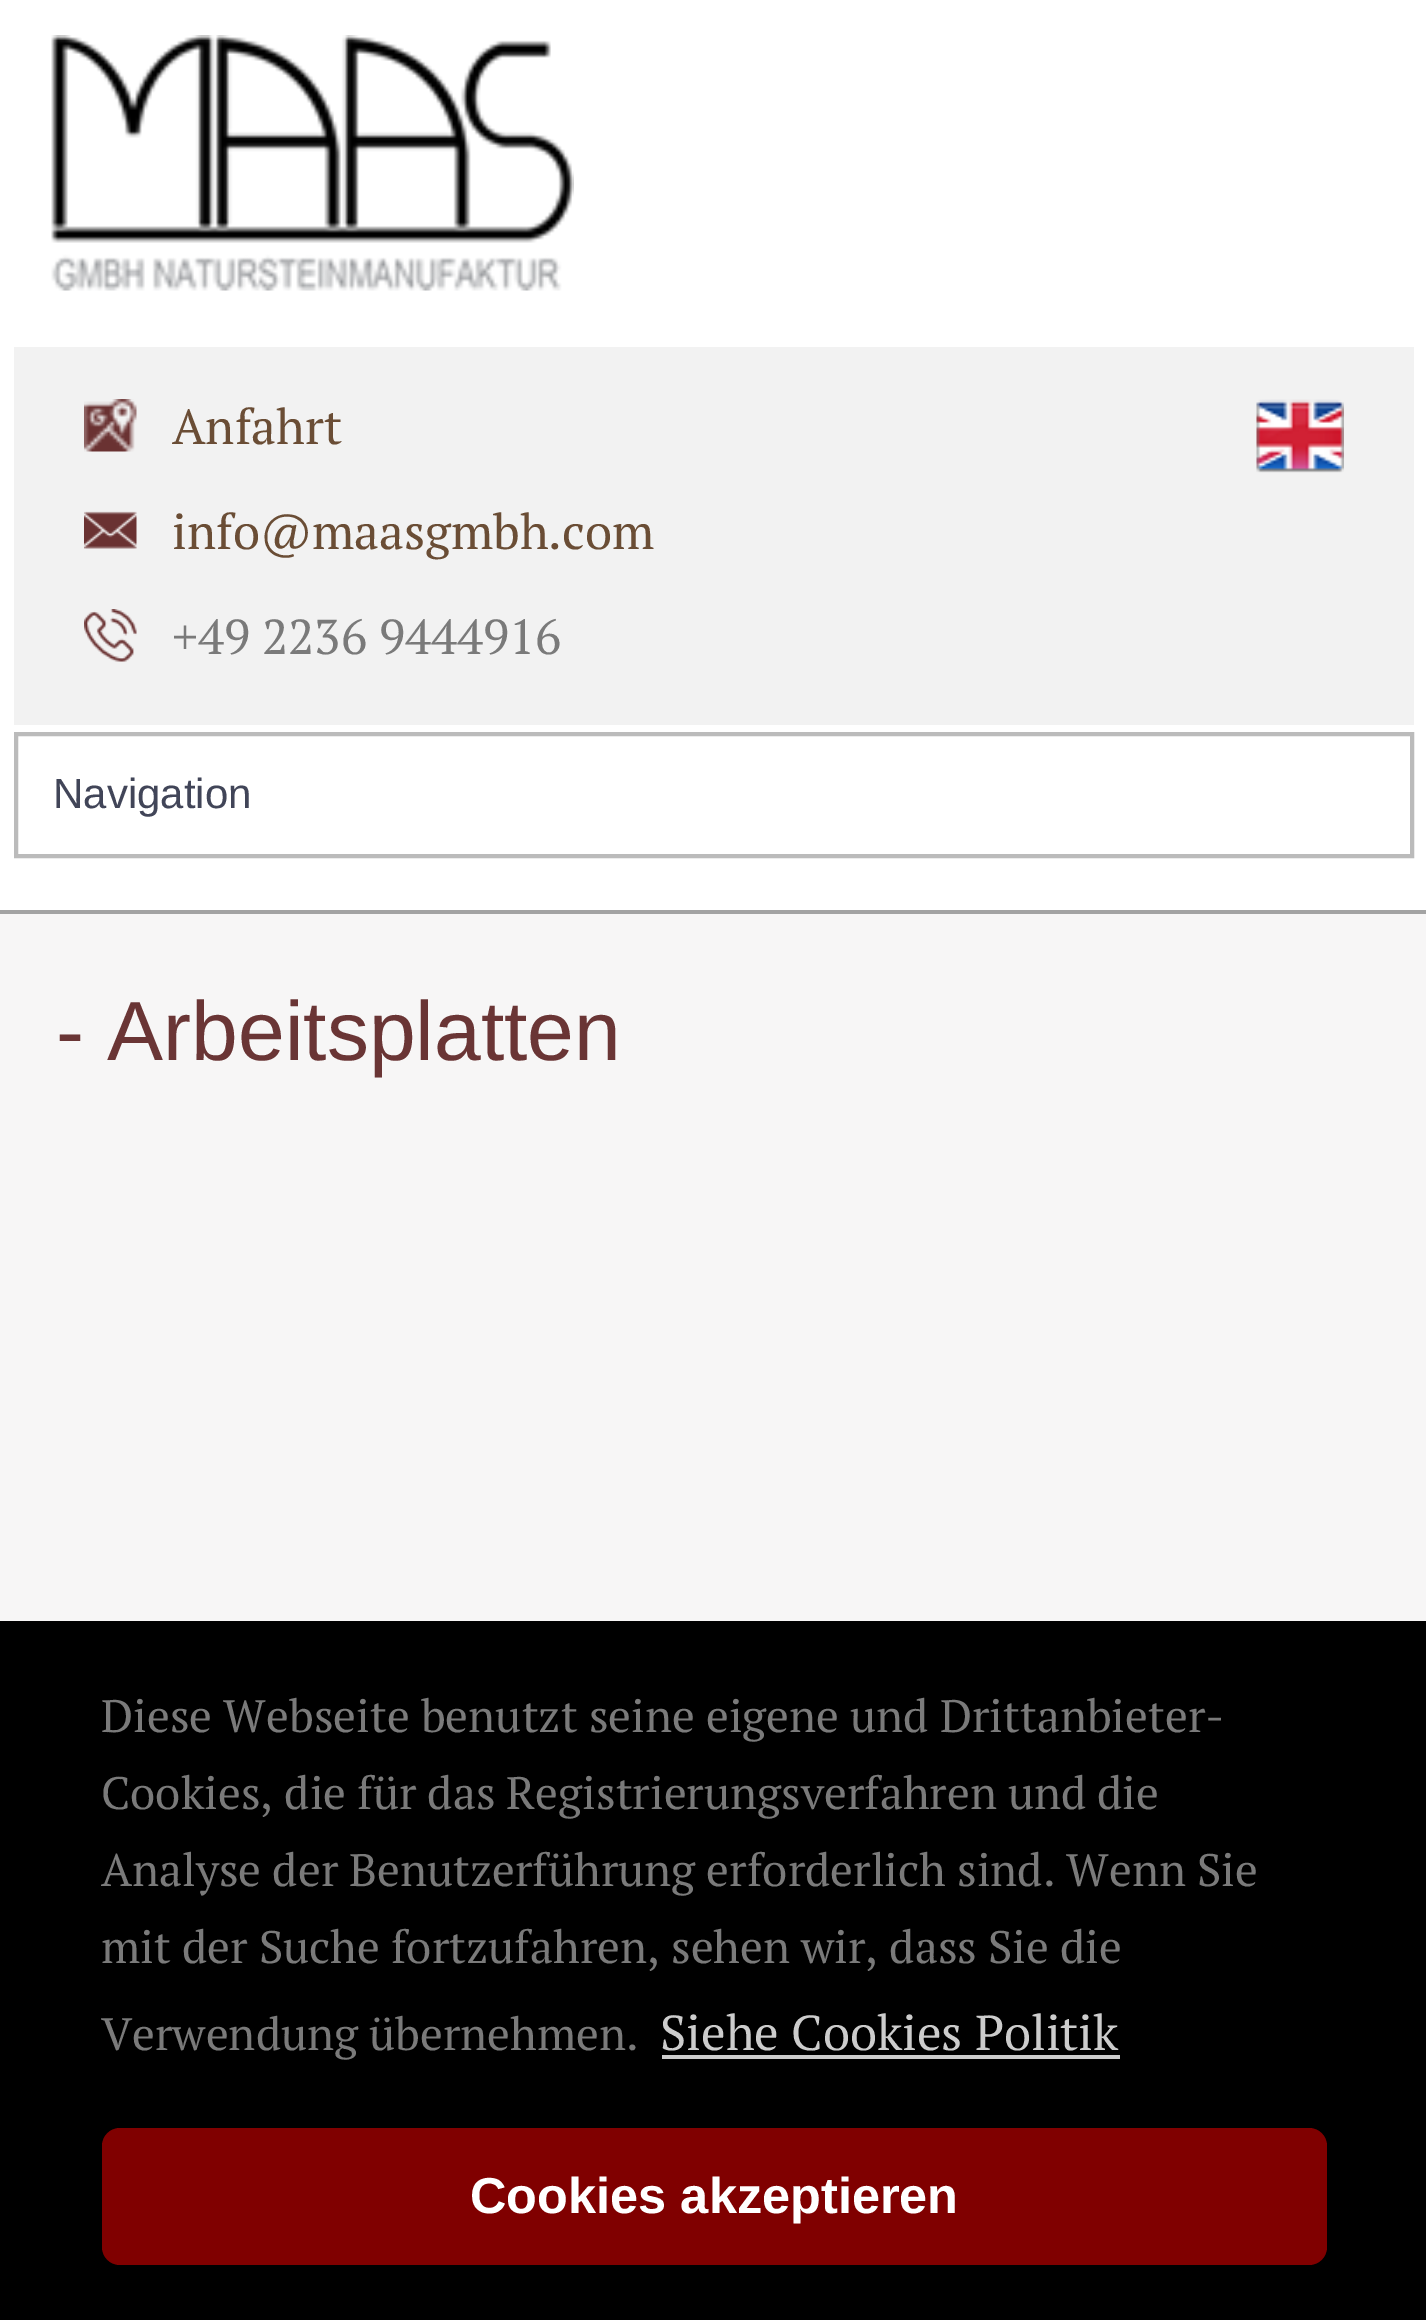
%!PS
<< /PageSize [1426 2320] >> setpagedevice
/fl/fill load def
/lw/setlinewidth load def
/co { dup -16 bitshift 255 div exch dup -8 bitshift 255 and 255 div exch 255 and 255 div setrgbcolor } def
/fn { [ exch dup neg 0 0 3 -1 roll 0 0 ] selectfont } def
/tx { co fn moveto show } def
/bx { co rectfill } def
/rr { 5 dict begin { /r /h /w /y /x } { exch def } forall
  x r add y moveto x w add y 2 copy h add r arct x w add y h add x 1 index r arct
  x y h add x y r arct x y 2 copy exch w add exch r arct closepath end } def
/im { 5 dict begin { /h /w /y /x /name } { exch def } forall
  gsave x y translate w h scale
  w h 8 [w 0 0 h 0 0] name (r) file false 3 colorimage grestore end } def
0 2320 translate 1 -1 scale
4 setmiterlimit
0 0 1426 2320 16#F7F6F6 bx
0 0 1426 910 16#FFFFFF bx
0 910 1426 4 16#A3A3A3 bx
(media/1.raw) 51 35 523 256 im
14 347 1400 378 16#F2F2F2 bx
(media/2.raw) 84 399 53 53 im
(media/3.raw) 1256 399 88 74 im
(media/4.raw) 84 511 53 38 im
(media/5.raw) 84 609 53 53 im
16#BBBBBB co
4 lw
16 734 1396 122 rectstroke
0 1621 1426 699 16#000000 bx
662 2055 458 4 16#CCCCCC bx
16#800000 co
102 2128 1225 137 18 rr fl
(Anfahrt) 172 444 /PTSerif-Regular 49 16#6A4D35 tx
(info@maasgmbh.com) 172 549 /PTSerif-Regular 49 16#6A4D35 tx
(+49 2236 9444916) 172 654 /PTSerif-Regular 49 16#7A7A7A tx
(Navigation) 53 808 /LiberationSans-Regular 42 16#414558 tx
(- Arbeitsplatten) 56 1060 /LiberationSans-Regular 84 16#6A3535 tx
(Diese Webseite benutzt seine eigene und Drittanbieter-) 101 1732 /PTSerif-Regular 45.5 16#7A7A7A tx
(Cookies, die für das Registrierungsverfahren und die) 101 1809 /PTSerif-Regular 45.5 16#7A7A7A tx
(Analyse der Benutzerführung erforderlich sind. Wenn Sie) 101 1886 /PTSerif-Regular 45.5 16#7A7A7A tx
(mit der Suche fortzufahren, sehen wir, dass Sie die) 101 1963 /PTSerif-Regular 45.5 16#7A7A7A tx
(Verwendung übernehmen.) 101 2050 /PTSerif-Regular 45.5 16#7A7A7A tx
(Siehe Cookies Politik) 660 2050 /PTSerif-Regular 49 16#CCCCCC tx
(Cookies akzeptieren) 470 2213 /LiberationSans-Bold 50.5 16#FFFFFF tx
showpage
